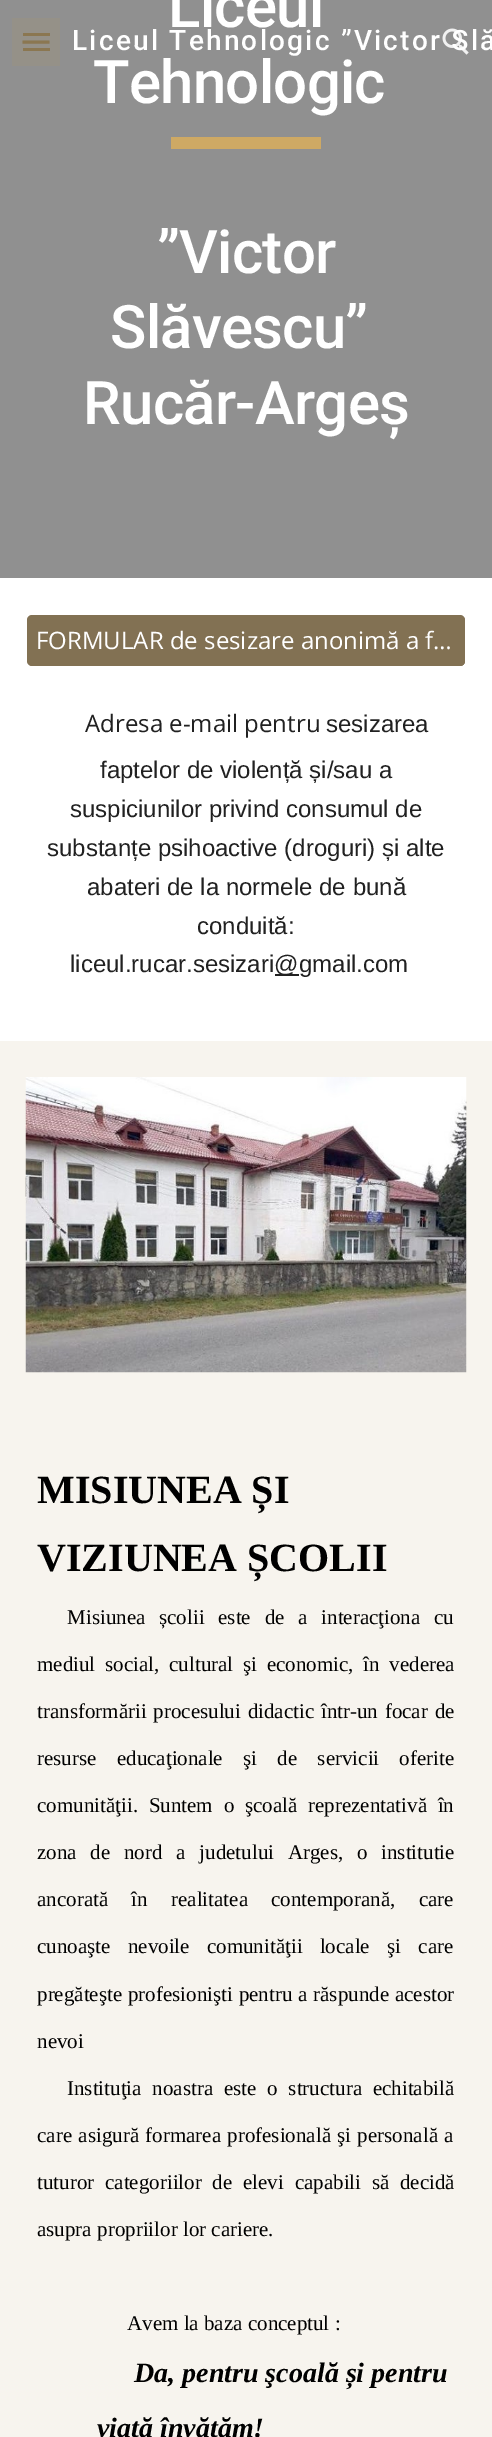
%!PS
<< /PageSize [492 2437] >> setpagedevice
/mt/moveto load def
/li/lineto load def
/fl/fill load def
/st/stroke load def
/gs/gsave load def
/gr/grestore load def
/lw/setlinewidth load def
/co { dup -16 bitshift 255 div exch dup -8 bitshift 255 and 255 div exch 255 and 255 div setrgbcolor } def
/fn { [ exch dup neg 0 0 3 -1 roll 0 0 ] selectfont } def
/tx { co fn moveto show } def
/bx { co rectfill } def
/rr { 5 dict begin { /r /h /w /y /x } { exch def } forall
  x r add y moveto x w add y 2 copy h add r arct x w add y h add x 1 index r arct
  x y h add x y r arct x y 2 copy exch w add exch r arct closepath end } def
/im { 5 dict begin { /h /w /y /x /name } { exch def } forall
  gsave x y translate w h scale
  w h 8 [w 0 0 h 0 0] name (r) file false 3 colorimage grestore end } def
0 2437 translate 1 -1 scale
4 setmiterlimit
0 0 492 2437 16#FFFFFF bx
0 0 492 578 16#909090 bx
12 18 48 48 16#959188 bx
171 137 150 12 16#CEA964 bx
16#827153 co
27 615 439 52 5 rr gs fl gr
16#FFFFFF co
2 lw
st
16#827153 co
27 615 438 51 5 rr fl
275 974 24 2 16#212121 bx
0 1041 492 1396 16#F7F4EE bx
(media/1.raw) 25 1077 442 296 im
23 33 27 3 16#8B7751 bx
3 lw
22.5 42 mt 49.5 42 li st
23 48 27 3 16#8B7751 bx
/Roboto-Medium 60 fn
16#FFFFFF co
168 27 mt -.75 0 (Liceul) ashow
93 103 mt -.75 0 (Tehnologic) ashow
157 273 mt -.75 0 (”Victor) ashow
110 348 mt -.75 0 (Slăvescu”) ashow
83 424 mt -.75 0 (Rucăr-Argeș) ashow
(FORMULAR de sesizare anonimă a f…) 36 649 /OpenSans-Regular 24 16#FFFFFF tx
(Adresa e-mail pentru) 85 732 /OpenSans-Regular 24 16#212121 tx
(sesizarea) 326 732 /LiberationSans-Regular 24 16#212121 tx
(faptelor de violență și/sau a) 100 778 /LiberationSans-Regular 24 16#212121 tx
(suspiciunilor privind consumul de) 70 817 /LiberationSans-Regular 24 16#212121 tx
(substanțe psihoactive \(droguri\) și alte) 47 856 /LiberationSans-Regular 24 16#212121 tx
(abateri de la normele de bună) 87 895 /LiberationSans-Regular 24 16#212121 tx
(conduită:) 197 934 /LiberationSans-Regular 24 16#212121 tx
(liceul.rucar.sesizari) 70 972 /LiberationSans-Regular 24 16#212121 tx
(@) 274 972 /LiberationSans-Regular 24 16#212121 tx
(gmail.com) 299 972 /LiberationSans-Regular 24 16#212121 tx
(MISIUNEA ȘI) 37 1503 /LiberationSerif-Bold 40 16#000000 tx
(VIZIUNEA ȘCOLII) 37 1571 /LiberationSerif-Bold 40 16#000000 tx
/LiberationSerif-Regular 21 fn
67 1624 mt 8.5 0 32 (Misiunea școlii este de a interacţiona cu) widthshow
37 1671 mt 4.5 0 32 (mediul social, cultural şi economic, în vederea) widthshow
37 1718 mt 1.5 0 32 (transformării procesului didactic într-un focar de) widthshow
37 1765 mt 15 0 32 (resurse educaţionale şi de servicii oferite) widthshow
37 1812 mt 5.5 0 32 (comunităţii. Suntem o şcoală reprezentativă în) widthshow
37 1859 mt 8.5 0 32 (zona de nord a judetului Arges, o institutie) widthshow
37 1906 mt 18 0 32 (ancorată în realitatea contemporană, care) widthshow
37 1953 mt 12 0 32 (cunoaşte nevoile comunităţii locale şi care) widthshow
37 2001 mt .5 0 32 (pregăteşte profesionişti pentru a răspunde acestor) widthshow
(nevoi) 37 2048 /LiberationSerif-Regular 21 16#000000 tx
67 2095 mt 5.5 0 32 (Instituţia noastra este o structura echitabilă) widthshow
37 2142 mt 1 0 32 (care asigură formarea profesională şi personală a) widthshow
37 2189 mt 5.5 0 32 (tuturor categoriilor de elevi capabili să decidă) widthshow
(asupra propriilor lor cariere.) 37 2236 /LiberationSerif-Regular 21 16#000000 tx
(Avem la baza conceptul :) 127 2330 /LiberationSerif-Regular 21 16#000000 tx
(Da, pentru şcoală și pentru) 134 2382 /LiberationSerif-BoldItalic 28 16#000000 tx
(viață învăţăm!) 97 2437 /LiberationSerif-BoldItalic 28 16#000000 tx
/Roboto-Medium 28 fn
16#FFFFFF co
72 50 mt 2.25 0 (Liceul Tehnologic ”Victor Slă) ashow
(media/2.raw) 442 28 27 27 im
showpage
